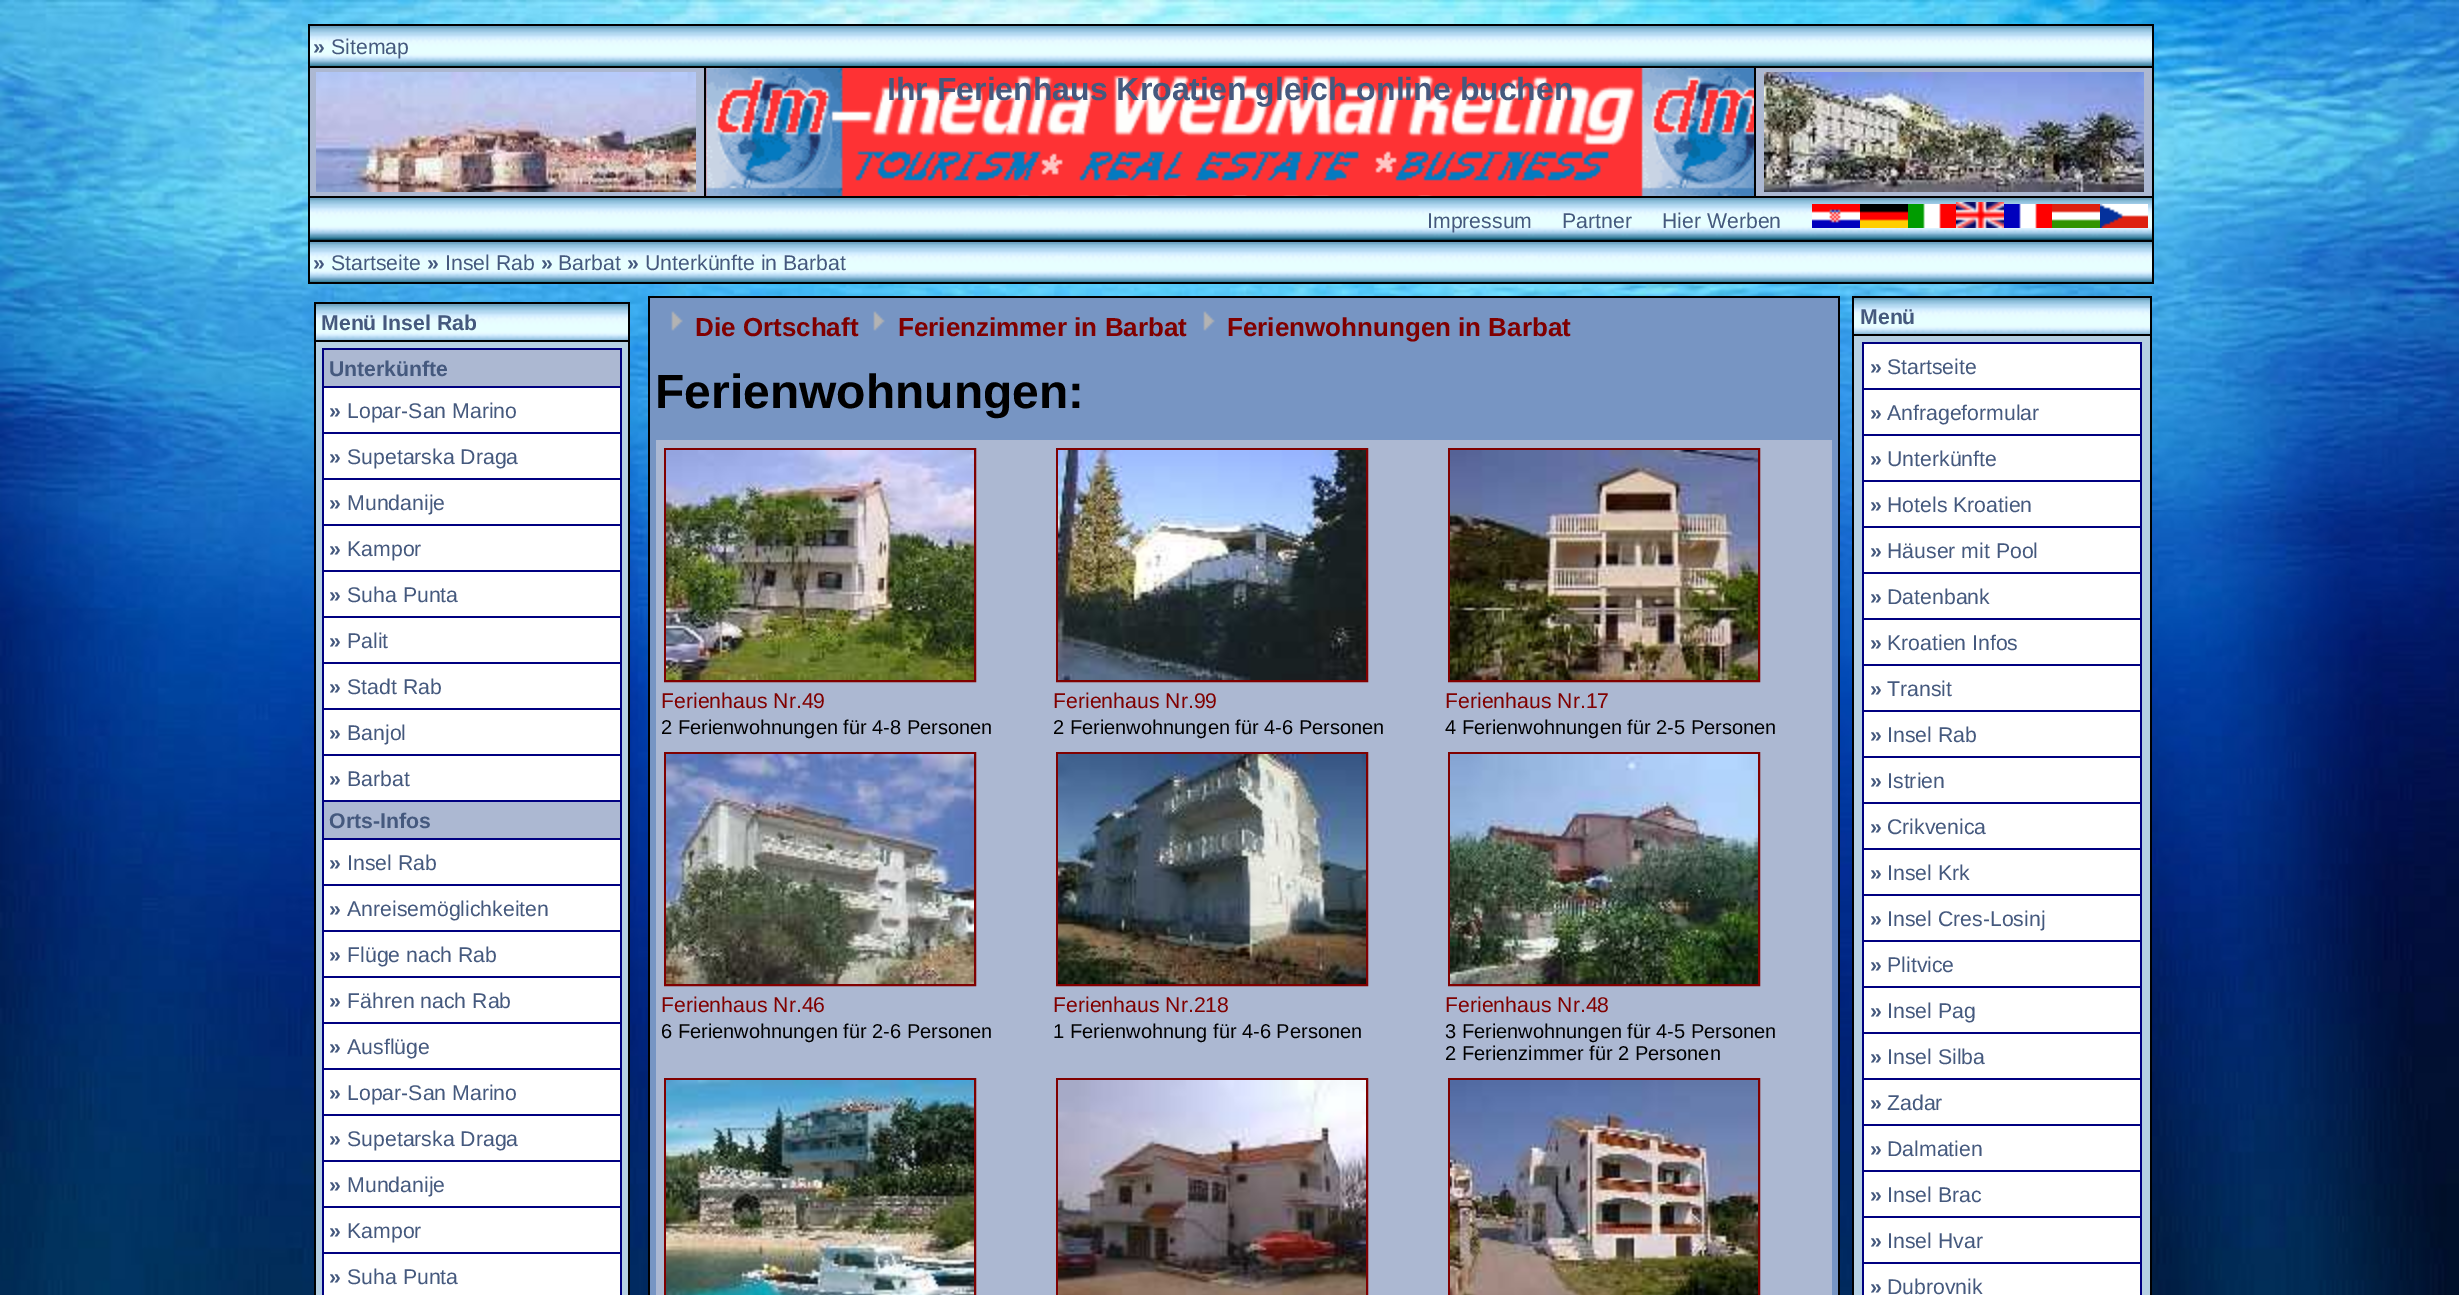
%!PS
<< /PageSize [2459 1295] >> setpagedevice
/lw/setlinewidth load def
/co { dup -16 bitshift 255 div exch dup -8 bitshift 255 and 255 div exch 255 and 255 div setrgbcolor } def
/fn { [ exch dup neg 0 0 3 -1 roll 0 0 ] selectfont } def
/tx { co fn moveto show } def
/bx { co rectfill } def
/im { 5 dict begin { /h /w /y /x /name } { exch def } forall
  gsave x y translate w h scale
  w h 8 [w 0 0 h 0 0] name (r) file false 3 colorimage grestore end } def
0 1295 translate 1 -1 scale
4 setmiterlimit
0 0 2459 1295 16#FFFFFF bx
(media/1.raw) 0 0 2459 1295 im
308 24 1846 260 16#000000 bx
(media/2.raw) 310 26 1842 40 im
310 68 394 128 16#ACB8D2 bx
(media/3.raw) 316 72 380 120 im
(media/4.raw) 706 68 1048 128 im
1756 68 396 128 16#ACB8D2 bx
(media/5.raw) 1764 72 380 120 im
(media/6.raw) 310 198 1842 42 im
(media/7.raw) 1812 204 48 24 im
(media/8.raw) 1860 204 48 24 im
(media/9.raw) 1908 204 48 24 im
(media/10.raw) 1956 202 48 26 im
(media/11.raw) 2004 204 48 24 im
(media/12.raw) 2052 204 48 24 im
(media/13.raw) 2100 204 48 24 im
(media/2.raw) 310 242 1842 40 im
314 302 316 993 16#000000 bx
(media/14.raw) 316 304 312 36 im
316 342 312 953 16#B5D0E3 bx
322 348 300 947 16#000080 bx
324 350 296 36 16#ACB8D2 bx
324 388 296 44 16#FFFFFF bx
324 434 296 44 16#FFFFFF bx
324 480 296 44 16#FFFFFF bx
324 526 296 44 16#FFFFFF bx
324 572 296 44 16#FFFFFF bx
324 618 296 44 16#FFFFFF bx
324 664 296 44 16#FFFFFF bx
324 710 296 44 16#FFFFFF bx
324 756 296 44 16#FFFFFF bx
324 802 296 36 16#ACB8D2 bx
324 840 296 44 16#FFFFFF bx
324 886 296 44 16#FFFFFF bx
324 932 296 44 16#FFFFFF bx
324 978 296 44 16#FFFFFF bx
324 1024 296 44 16#FFFFFF bx
324 1070 296 44 16#FFFFFF bx
324 1116 296 44 16#FFFFFF bx
324 1162 296 44 16#FFFFFF bx
324 1208 296 44 16#FFFFFF bx
324 1254 296 41 16#FFFFFF bx
648 296 1192 999 16#000000 bx
650 298 1188 997 16#7795C3 bx
(media/15.raw) 671 311 12 20 im
(media/15.raw) 873 311 12 20 im
(media/15.raw) 1203 311 12 20 im
656 440 1176 855 16#ACB8D2 bx
16#800000 co
2 lw
665 449 310 232 rectstroke
(media/16.raw) 666 450 308 230 im
1057 449 310 232 rectstroke
(media/17.raw) 1058 450 308 230 im
1449 449 310 232 rectstroke
(media/18.raw) 1450 450 308 230 im
665 753 310 232 rectstroke
(media/19.raw) 666 754 308 230 im
1057 753 310 232 rectstroke
(media/20.raw) 1058 754 308 230 im
1449 753 310 232 rectstroke
(media/21.raw) 1450 754 308 230 im
665 1079 310 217 rectstroke
(media/22.raw) 666 1080 308 215 im
1057 1079 310 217 rectstroke
(media/23.raw) 1058 1080 308 215 im
1449 1079 310 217 rectstroke
(media/24.raw) 1450 1080 308 215 im
1852 296 300 999 16#000000 bx
(media/25.raw) 1854 298 296 36 im
1854 336 296 959 16#B5D0E3 bx
1862 342 280 953 16#000080 bx
1864 344 276 44 16#FFFFFF bx
1864 390 276 44 16#FFFFFF bx
1864 436 276 44 16#FFFFFF bx
1864 482 276 44 16#FFFFFF bx
1864 528 276 44 16#FFFFFF bx
1864 574 276 44 16#FFFFFF bx
1864 620 276 44 16#FFFFFF bx
1864 666 276 44 16#FFFFFF bx
1864 712 276 44 16#FFFFFF bx
1864 758 276 44 16#FFFFFF bx
1864 804 276 44 16#FFFFFF bx
1864 850 276 44 16#FFFFFF bx
1864 896 276 44 16#FFFFFF bx
1864 942 276 44 16#FFFFFF bx
1864 988 276 44 16#FFFFFF bx
1864 1034 276 44 16#FFFFFF bx
1864 1080 276 44 16#FFFFFF bx
1864 1126 276 44 16#FFFFFF bx
1864 1172 276 44 16#FFFFFF bx
1864 1218 276 44 16#FFFFFF bx
1864 1264 276 31 16#FFFFFF bx
(») 313 54 /LiberationSans-Bold 21.25 16#45597E tx
(Sitemap) 331 54 /LiberationSans-Regular 21.25 16#45597E tx
(Ihr Ferienhaus Kroatien gleich online buchen) 887 100 /LiberationSans-Bold 32 16#45597E tx
(Impressum) 1427 228 /LiberationSans-Regular 21.25 16#45597E tx
(Partner) 1562 228 /LiberationSans-Regular 21.25 16#45597E tx
(Hier Werben) 1662 228 /LiberationSans-Regular 21.25 16#45597E tx
(») 313 270 /LiberationSans-Bold 21.25 16#45597E tx
(Startseite) 331 270 /LiberationSans-Regular 21.25 16#45597E tx
(») 427 270 /LiberationSans-Bold 21.25 16#45597E tx
(Insel Rab) 445 270 /LiberationSans-Regular 21.25 16#45597E tx
(») 541 270 /LiberationSans-Bold 21.25 16#45597E tx
(Barbat) 558 270 /LiberationSans-Regular 21.25 16#45597E tx
(») 627 270 /LiberationSans-Bold 21.25 16#45597E tx
(Unterkünfte in Barbat) 645 270 /LiberationSans-Regular 21.25 16#45597E tx
(Menü Insel Rab) 321 330 /LiberationSans-Bold 21.25 16#45597E tx
(Unterkünfte) 329 376 /LiberationSans-Bold 21.25 16#45597E tx
(») 329 418 /LiberationSans-Bold 21.25 16#45597E tx
(Lopar-San Marino) 347 418 /LiberationSans-Regular 21.25 16#45597E tx
(») 329 464 /LiberationSans-Bold 21.25 16#45597E tx
(Supetarska Draga) 347 464 /LiberationSans-Regular 21.25 16#45597E tx
(») 329 510 /LiberationSans-Bold 21.25 16#45597E tx
(Mundanije) 347 510 /LiberationSans-Regular 21.25 16#45597E tx
(») 329 556 /LiberationSans-Bold 21.25 16#45597E tx
(Kampor) 347 556 /LiberationSans-Regular 21.25 16#45597E tx
(») 329 602 /LiberationSans-Bold 21.25 16#45597E tx
(Suha Punta) 347 602 /LiberationSans-Regular 21.25 16#45597E tx
(») 329 648 /LiberationSans-Bold 21.25 16#45597E tx
(Palit) 347 648 /LiberationSans-Regular 21.25 16#45597E tx
(») 329 694 /LiberationSans-Bold 21.25 16#45597E tx
(Stadt Rab) 347 694 /LiberationSans-Regular 21.25 16#45597E tx
(») 329 740 /LiberationSans-Bold 21.25 16#45597E tx
(Banjol) 347 740 /LiberationSans-Regular 21.25 16#45597E tx
(») 329 786 /LiberationSans-Bold 21.25 16#45597E tx
(Barbat) 347 786 /LiberationSans-Regular 21.25 16#45597E tx
(Orts-Infos) 329 828 /LiberationSans-Bold 21.25 16#45597E tx
(») 329 870 /LiberationSans-Bold 21.25 16#45597E tx
(Insel Rab) 347 870 /LiberationSans-Regular 21.25 16#45597E tx
(») 329 916 /LiberationSans-Bold 21.25 16#45597E tx
(Anreisemöglichkeiten) 347 916 /LiberationSans-Regular 21.25 16#45597E tx
(») 329 962 /LiberationSans-Bold 21.25 16#45597E tx
(Flüge nach Rab) 347 962 /LiberationSans-Regular 21.25 16#45597E tx
(») 329 1008 /LiberationSans-Bold 21.25 16#45597E tx
(Fähren nach Rab) 347 1008 /LiberationSans-Regular 21.25 16#45597E tx
(») 329 1054 /LiberationSans-Bold 21.25 16#45597E tx
(Ausflüge) 347 1054 /LiberationSans-Regular 21.25 16#45597E tx
(») 329 1100 /LiberationSans-Bold 21.25 16#45597E tx
(Lopar-San Marino) 347 1100 /LiberationSans-Regular 21.25 16#45597E tx
(») 329 1146 /LiberationSans-Bold 21.25 16#45597E tx
(Supetarska Draga) 347 1146 /LiberationSans-Regular 21.25 16#45597E tx
(») 329 1192 /LiberationSans-Bold 21.25 16#45597E tx
(Mundanije) 347 1192 /LiberationSans-Regular 21.25 16#45597E tx
(») 329 1238 /LiberationSans-Bold 21.25 16#45597E tx
(Kampor) 347 1238 /LiberationSans-Regular 21.25 16#45597E tx
(») 329 1284 /LiberationSans-Bold 21.25 16#45597E tx
(Suha Punta) 347 1284 /LiberationSans-Regular 21.25 16#45597E tx
(Die Ortschaft) 695 336 /LiberationSans-Bold 26 16#800000 tx
(Ferienzimmer in Barbat) 898 336 /LiberationSans-Bold 26 16#800000 tx
(Ferienwohnungen in Barbat) 1227 336 /LiberationSans-Bold 26 16#800000 tx
(Ferienwohnungen:) 655 408 /LiberationSans-Bold 48 16#000000 tx
(Ferienhaus Nr.49) 661 708 /LiberationSans-Regular 21.25 16#800000 tx
(2 Ferienwohnungen für 4-8 Personen) 661 734 /LiberationSans-Regular 20 16#000000 tx
(Ferienhaus Nr.99) 1053 708 /LiberationSans-Regular 21.25 16#800000 tx
(2 Ferienwohnungen für 4-6 Personen) 1053 734 /LiberationSans-Regular 20 16#000000 tx
(Ferienhaus Nr.17) 1445 708 /LiberationSans-Regular 21.25 16#800000 tx
(4 Ferienwohnungen für 2-5 Personen) 1445 734 /LiberationSans-Regular 20 16#000000 tx
(Ferienhaus Nr.46) 661 1012 /LiberationSans-Regular 21.25 16#800000 tx
(6 Ferienwohnungen für 2-6 Personen) 661 1038 /LiberationSans-Regular 20 16#000000 tx
(Ferienhaus Nr.218) 1053 1012 /LiberationSans-Regular 21.25 16#800000 tx
(1 Ferienwohnung für 4-6 Personen) 1053 1038 /LiberationSans-Regular 20 16#000000 tx
(Ferienhaus Nr.48) 1445 1012 /LiberationSans-Regular 21.25 16#800000 tx
(3 Ferienwohnungen für 4-5 Personen) 1445 1038 /LiberationSans-Regular 20 16#000000 tx
(2 Ferienzimmer für 2 Personen) 1445 1060 /LiberationSans-Regular 20 16#000000 tx
(Menü) 1860 324 /LiberationSans-Bold 21.25 16#45597E tx
(») 1870 374 /LiberationSans-Bold 21.25 16#45597E tx
(Startseite) 1887 374 /LiberationSans-Regular 21.25 16#45597E tx
(») 1870 420 /LiberationSans-Bold 21.25 16#45597E tx
(Anfrageformular) 1887 420 /LiberationSans-Regular 21.25 16#45597E tx
(») 1870 466 /LiberationSans-Bold 21.25 16#45597E tx
(Unterkünfte) 1887 466 /LiberationSans-Regular 21.25 16#45597E tx
(») 1870 512 /LiberationSans-Bold 21.25 16#45597E tx
(Hotels Kroatien) 1887 512 /LiberationSans-Regular 21.25 16#45597E tx
(») 1870 558 /LiberationSans-Bold 21.25 16#45597E tx
(Häuser mit Pool) 1887 558 /LiberationSans-Regular 21.25 16#45597E tx
(») 1870 604 /LiberationSans-Bold 21.25 16#45597E tx
(Datenbank) 1887 604 /LiberationSans-Regular 21.25 16#45597E tx
(») 1870 650 /LiberationSans-Bold 21.25 16#45597E tx
(Kroatien Infos) 1887 650 /LiberationSans-Regular 21.25 16#45597E tx
(») 1870 696 /LiberationSans-Bold 21.25 16#45597E tx
(Transit) 1887 696 /LiberationSans-Regular 21.25 16#45597E tx
(») 1870 742 /LiberationSans-Bold 21.25 16#45597E tx
(Insel Rab) 1887 742 /LiberationSans-Regular 21.25 16#45597E tx
(») 1870 788 /LiberationSans-Bold 21.25 16#45597E tx
(Istrien) 1887 788 /LiberationSans-Regular 21.25 16#45597E tx
(») 1870 834 /LiberationSans-Bold 21.25 16#45597E tx
(Crikvenica) 1887 834 /LiberationSans-Regular 21.25 16#45597E tx
(») 1870 880 /LiberationSans-Bold 21.25 16#45597E tx
(Insel Krk) 1887 880 /LiberationSans-Regular 21.25 16#45597E tx
(») 1870 926 /LiberationSans-Bold 21.25 16#45597E tx
(Insel Cres-Losinj) 1887 926 /LiberationSans-Regular 21.25 16#45597E tx
(») 1870 972 /LiberationSans-Bold 21.25 16#45597E tx
(Plitvice) 1887 972 /LiberationSans-Regular 21.25 16#45597E tx
(») 1870 1018 /LiberationSans-Bold 21.25 16#45597E tx
(Insel Pag) 1887 1018 /LiberationSans-Regular 21.25 16#45597E tx
(») 1870 1064 /LiberationSans-Bold 21.25 16#45597E tx
(Insel Silba) 1887 1064 /LiberationSans-Regular 21.25 16#45597E tx
(») 1870 1110 /LiberationSans-Bold 21.25 16#45597E tx
(Zadar) 1887 1110 /LiberationSans-Regular 21.25 16#45597E tx
(») 1870 1156 /LiberationSans-Bold 21.25 16#45597E tx
(Dalmatien) 1887 1156 /LiberationSans-Regular 21.25 16#45597E tx
(») 1870 1202 /LiberationSans-Bold 21.25 16#45597E tx
(Insel Brac) 1887 1202 /LiberationSans-Regular 21.25 16#45597E tx
(») 1870 1248 /LiberationSans-Bold 21.25 16#45597E tx
(Insel Hvar) 1887 1248 /LiberationSans-Regular 21.25 16#45597E tx
(») 1870 1294 /LiberationSans-Bold 21.25 16#45597E tx
(Dubrovnik) 1887 1294 /LiberationSans-Regular 21.25 16#45597E tx
showpage
